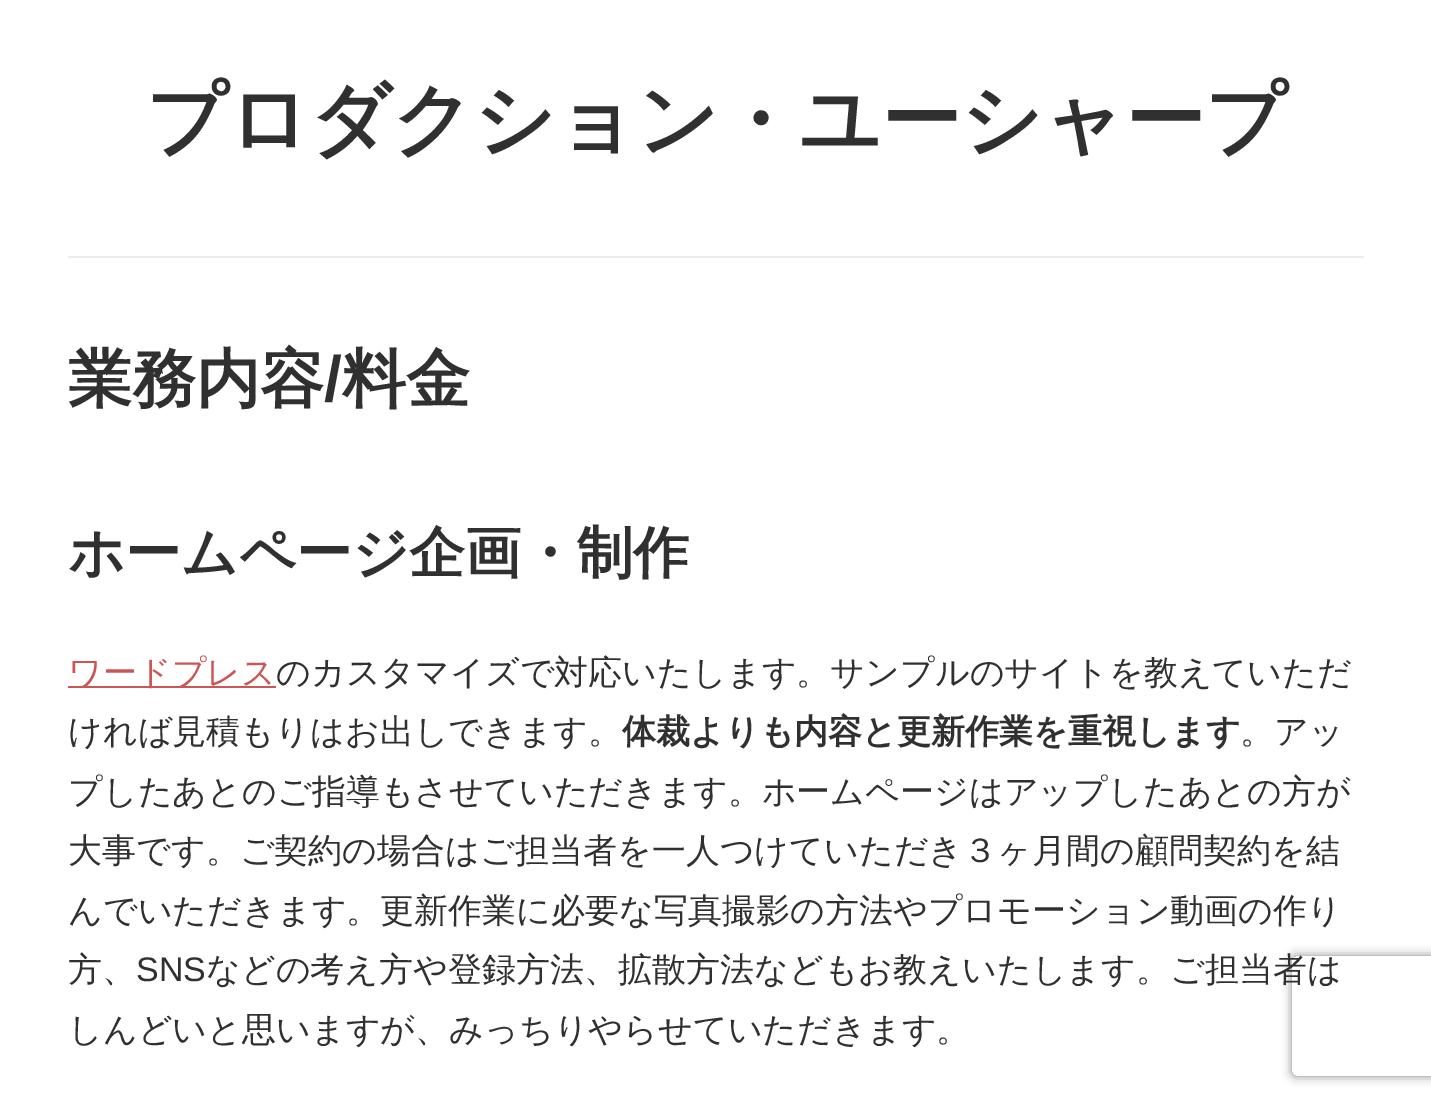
%!PS
<< /PageSize [1431 1103] /PageUsesTransparency true >> setpagedevice
/mt/moveto load def
/li/lineto load def
/ct/curveto load def
/cp/closepath load def
/gs/gsave load def
/gr/grestore load def
/co { dup -16 bitshift 255 div exch dup -8 bitshift 255 and 255 div exch 255 and 255 div setrgbcolor } def
/fn { [ exch dup neg 0 0 3 -1 roll 0 0 ] selectfont } def
/tx { co fn moveto show } def
/bx { co rectfill } def
/al { dup .setfillconstantalpha .setstrokeconstantalpha } def
/rr { 5 dict begin { /r /h /w /y /x } { exch def } forall
  x r add y moveto x w add y 2 copy h add r arct x w add y h add x 1 index r arct
  x y h add x y r arct x y 2 copy exch w add exch r arct closepath end } def
/sh { 12 dict begin { /a /b /q /h /w /y /x } { exch def } forall gsave /was 0 def
  9 -2 -9 { dup b mul 4 div /e exch def 1 sub .425 mul 2.718 exch exp 1 add a .99 .min exch div /now exch def
    1 1 now sub 1 was sub div sub al /was now def
    w h .min e 2 mul add 0 gt { x e sub y e sub w e 2 mul add h e 2 mul add
      q e add b .6 mul add w h .min 2 div e add .min 0 .max rr fill } if } for grestore end } def
0 .pushpdf14devicefilter
0 1103 translate 1 -1 scale
4 setmiterlimit
0 0 1431 1103 16#FFFFFF bx
68 256 1296 2 16#ECECEC bx
68 686 208 2 16#CC5555 bx
gs
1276 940 mt 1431 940 li 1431 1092 li 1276 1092 li cp 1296 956 mt 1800 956 li 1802 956 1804 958 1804 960 ct 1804 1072 li 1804 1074 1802 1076 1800 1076 ct 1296 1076 li 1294 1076 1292 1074 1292 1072 ct 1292 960 li 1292 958 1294 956 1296 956 ct cp eoclip newpath
16#808080 co
1292 956 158 120 4 5 1 sh
gr
(プロダクション・ユーシャープ) 146 147 /WenQuanYiZenHei-Bold 80 16#303030 tx
(業務内容) 68 401 /WenQuanYiZenHei-Bold 64 16#303030 tx
(/) 324 401 /LiberationSans-Bold 64 16#303030 tx
(料金) 342 401 /WenQuanYiZenHei-Bold 64 16#303030 tx
(ホームページ企画・制作) 68 572 /WenQuanYiZenHei-Bold 56 16#303030 tx
(ワードプレス) 68 684 /WenQuanYiZenHei-Medium 34 16#CC5555 tx
(のカスタマイズで対応いたします。サンプルのサイトを教えていただ) 276 684 /WenQuanYiZenHei-Medium 34 16#303030 tx
(ければ見積もりはお出しできます。) 68 743 /WenQuanYiZenHei-Medium 34 16#303030 tx
(体裁よりも内容と更新作業を重視します) 622 743 /WenQuanYiZenHei-Bold 34 16#303030 tx
(。アッ) 1240 743 /WenQuanYiZenHei-Medium 34 16#303030 tx
(プしたあとのご指導もさせていただきます。ホームページはアップしたあとの方が) 68 803 /WenQuanYiZenHei-Medium 34 16#303030 tx
(大事です。ご契約の場合はご担当者を一人つけていただき３ヶ月間の顧問契約を結) 68 862 /WenQuanYiZenHei-Medium 34 16#303030 tx
(んでいただきます。更新作業に必要な写真撮影の方法やプロモーション動画の作り) 68 922 /WenQuanYiZenHei-Medium 34 16#303030 tx
(方、) 68 981 /WenQuanYiZenHei-Medium 34 16#303030 tx
(SNS) 136 981 /LiberationSans-Regular 34 16#303030 tx
(などの考え方や登録方法、拡散方法などもお教えいたします。ご担当者は) 206 981 /WenQuanYiZenHei-Medium 34 16#303030 tx
(しんどいと思いますが、みっちりやらせていただきます。) 68 1041 /WenQuanYiZenHei-Medium 34 16#303030 tx
.poppdf14devicefilter showpage
